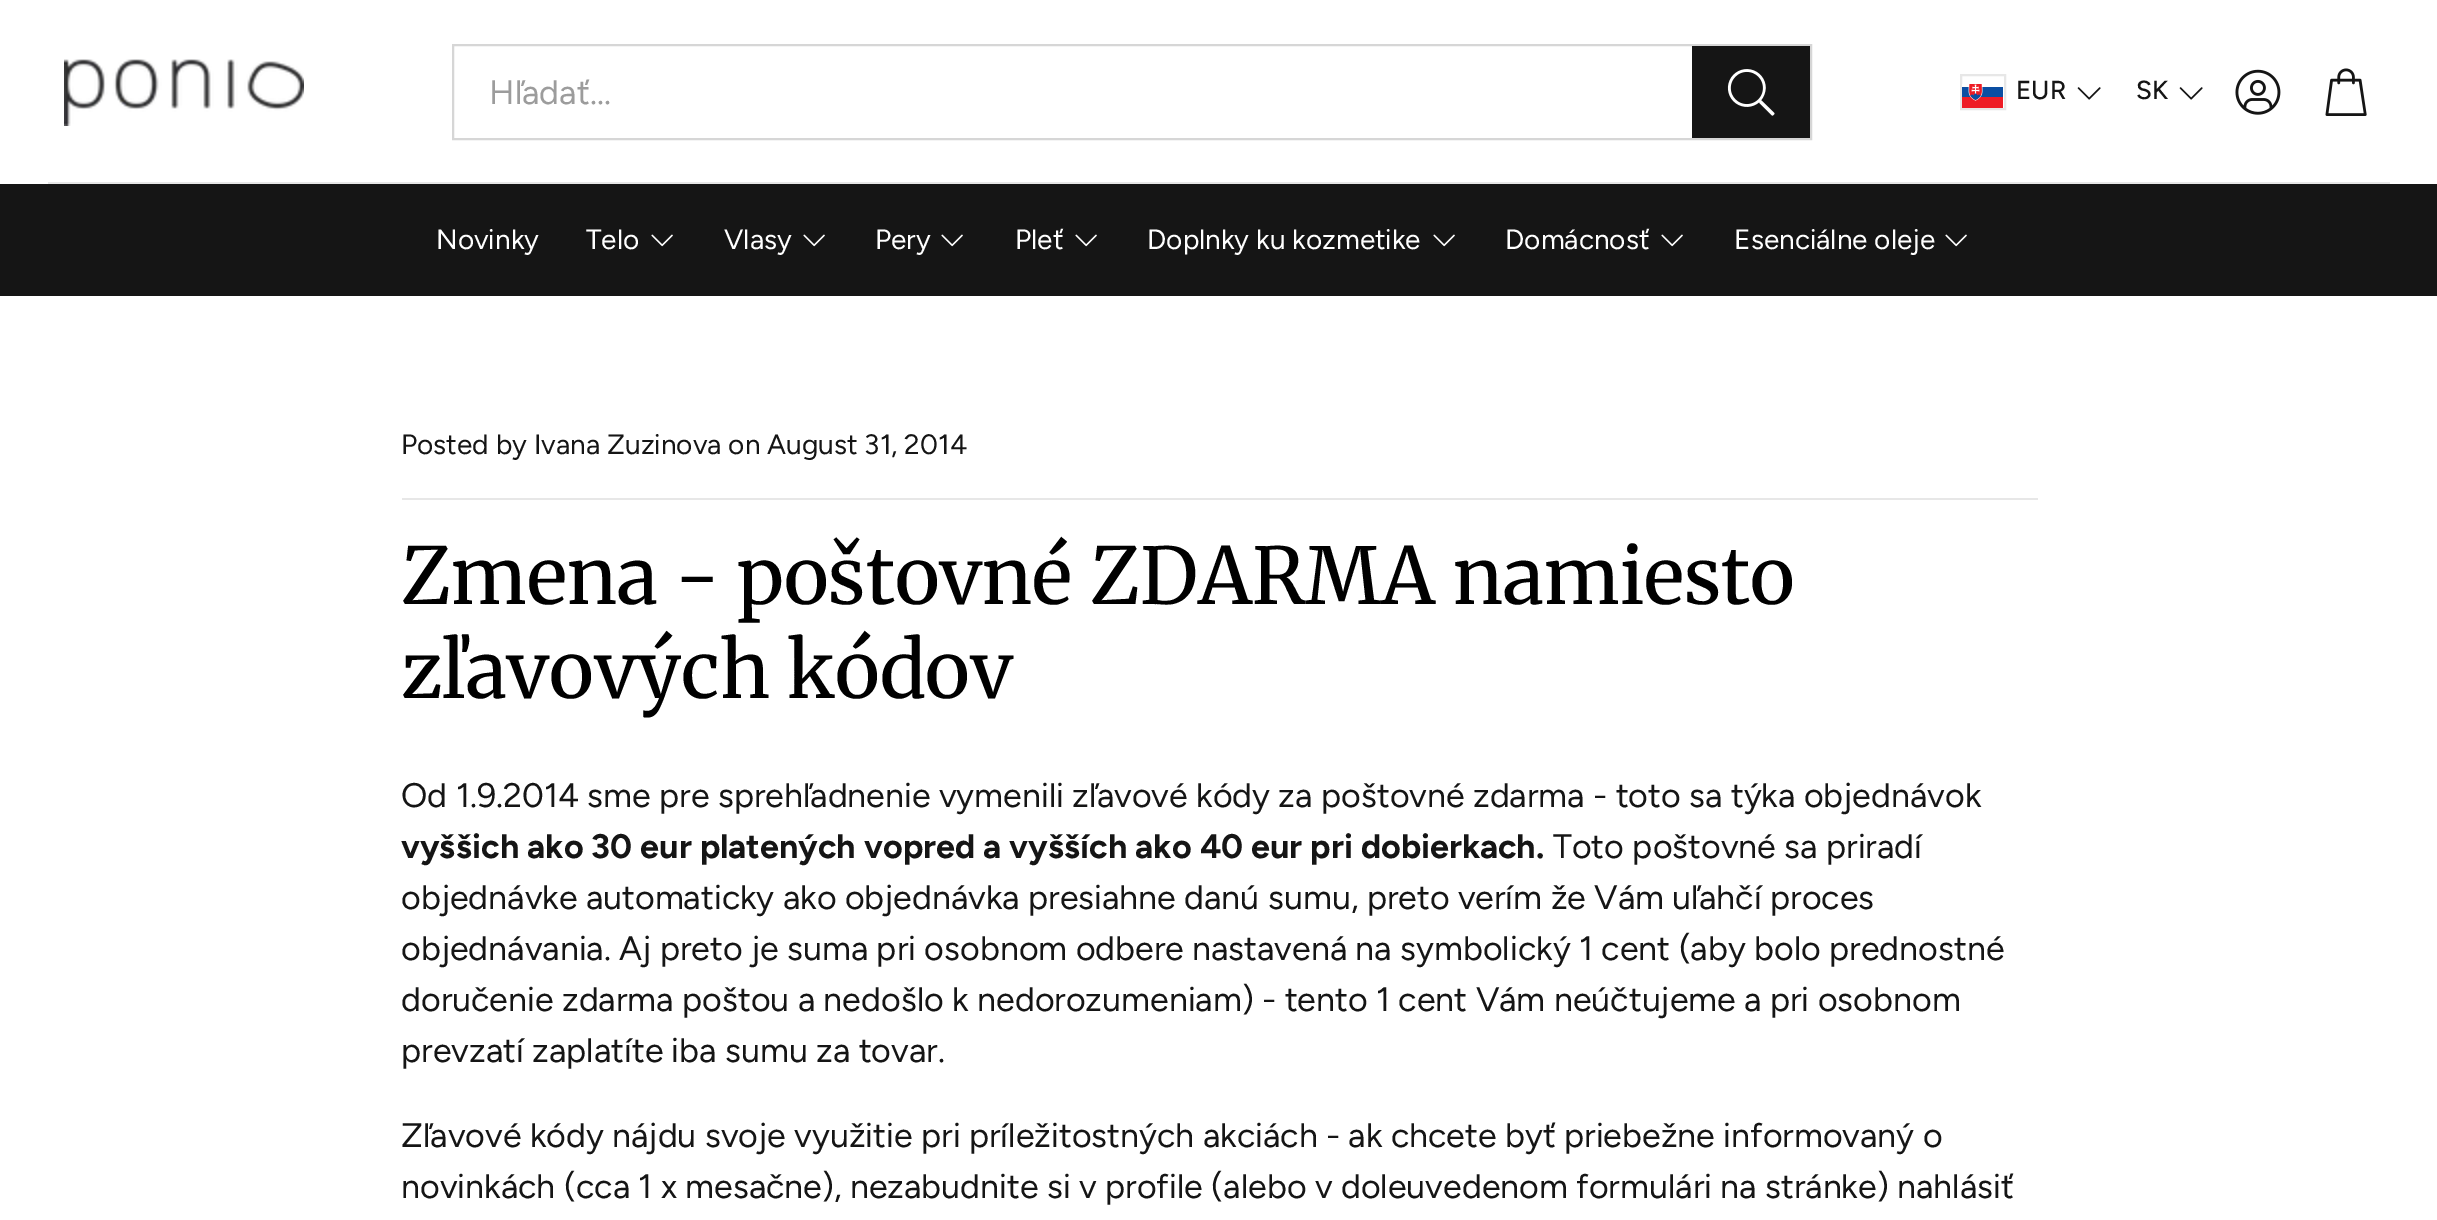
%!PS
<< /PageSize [2437 1220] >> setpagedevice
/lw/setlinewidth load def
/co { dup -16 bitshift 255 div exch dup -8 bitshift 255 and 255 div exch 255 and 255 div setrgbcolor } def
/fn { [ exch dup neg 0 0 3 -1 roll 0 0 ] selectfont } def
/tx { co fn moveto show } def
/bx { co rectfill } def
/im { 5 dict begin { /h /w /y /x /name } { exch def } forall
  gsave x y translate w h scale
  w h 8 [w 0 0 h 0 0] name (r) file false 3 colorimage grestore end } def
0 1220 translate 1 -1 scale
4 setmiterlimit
0 0 2437 1220 16#FFFFFF bx
(media/1.raw) 64 59 240 67 im
16#D6D6D6 co
2 lw
453 45 1358 94 rectstroke
1692 46 118 92 16#151515 bx
(media/2.raw) 1727 69 48 47 im
16#E7E7E7 co
1961 75 44 34 rectstroke
(media/3.raw) 1962 84 41 24 im
(media/4.raw) 2077 87 24 13 im
(media/4.raw) 2179 87 24 13 im
(media/5.raw) 2235 69 46 46 im
(media/6.raw) 2325 68 42 48 im
48 182 2342 2 16#E7E7E7 bx
0 184 2437 112 16#151515 bx
(media/7.raw) 651 234 22 13 im
(media/7.raw) 803 234 22 13 im
(media/7.raw) 941 234 22 13 im
(media/7.raw) 1075 234 22 13 im
(media/7.raw) 1433 234 22 13 im
(media/7.raw) 1661 234 22 13 im
(media/7.raw) 1945 234 22 13 im
402 498 1636 2 16#E7E7E7 bx
(Hľadať...) 489 104 /Figtree-Regular 34 16#9C9C9C tx
(EUR) 2016 99 /Figtree-Medium 26 16#151515 tx
(SK) 2136 99 /Figtree-Medium 26 16#151515 tx
(Novinky) 436 249 /Figtree-Regular 28 16#FFFFFF tx
(Telo) 586 249 /Figtree-Regular 28 16#FFFFFF tx
(Vlasy) 724 249 /Figtree-Regular 28 16#FFFFFF tx
(Pery) 875 249 /Figtree-Regular 28 16#FFFFFF tx
(Pleť) 1015 249 /Figtree-Regular 28 16#FFFFFF tx
(Doplnky ku kozmetike) 1147 249 /Figtree-Regular 28 16#FFFFFF tx
(Domácnosť) 1505 249 /Figtree-Regular 28 16#FFFFFF tx
(Esenciálne oleje) 1734 249 /Figtree-Regular 28 16#FFFFFF tx
(Posted by Ivana Zuzinova on August 31, 2014) 401 454 /Figtree-Regular 28 16#151515 tx
(Zmena - poštovné ZDARMA namiesto) 401 604 /Merriweather-Regular 78 16#000000 tx
(zľavových kódov) 401 698 /Merriweather-Regular 78 16#000000 tx
(Od 1.9.2014 sme pre sprehľadnenie vymenili zľavové kódy za poštovné zdarma - toto sa týka objednávok) 401 807 /Figtree-Regular 34 16#151515 tx
(vyššich ako 30 eur platených vopred a vyšších ako 40 eur pri dobierkach.) 401 858 /Figtree-Bold 34 16#151515 tx
(Toto poštovné sa priradí) 1553 858 /Figtree-Regular 34 16#151515 tx
(objednávke automaticky ako objednávka presiahne danú sumu, preto verím že Vám uľahčí proces) 401 909 /Figtree-Regular 34 16#151515 tx
(objednávania. Aj preto je suma pri osobnom odbere nastavená na symbolický 1 cent \(aby bolo prednostné) 401 960 /Figtree-Regular 34 16#151515 tx
(doručenie zdarma poštou a nedošlo k nedorozumeniam\) - tento 1 cent Vám neúčtujeme a pri osobnom) 401 1011 /Figtree-Regular 34 16#151515 tx
(prevzatí zaplatíte iba sumu za tovar.) 401 1062 /Figtree-Regular 34 16#151515 tx
(Zľavové kódy nájdu svoje využitie pri príležitostných akciách - ak chcete byť priebežne informovaný o) 401 1147 /Figtree-Regular 34 16#151515 tx
(novinkách \(cca 1 x mesačne\), nezabudnite si v profile \(alebo v doleuvedenom formulári na stránke\) nahlásiť) 401 1198 /Figtree-Regular 34 16#151515 tx
showpage
